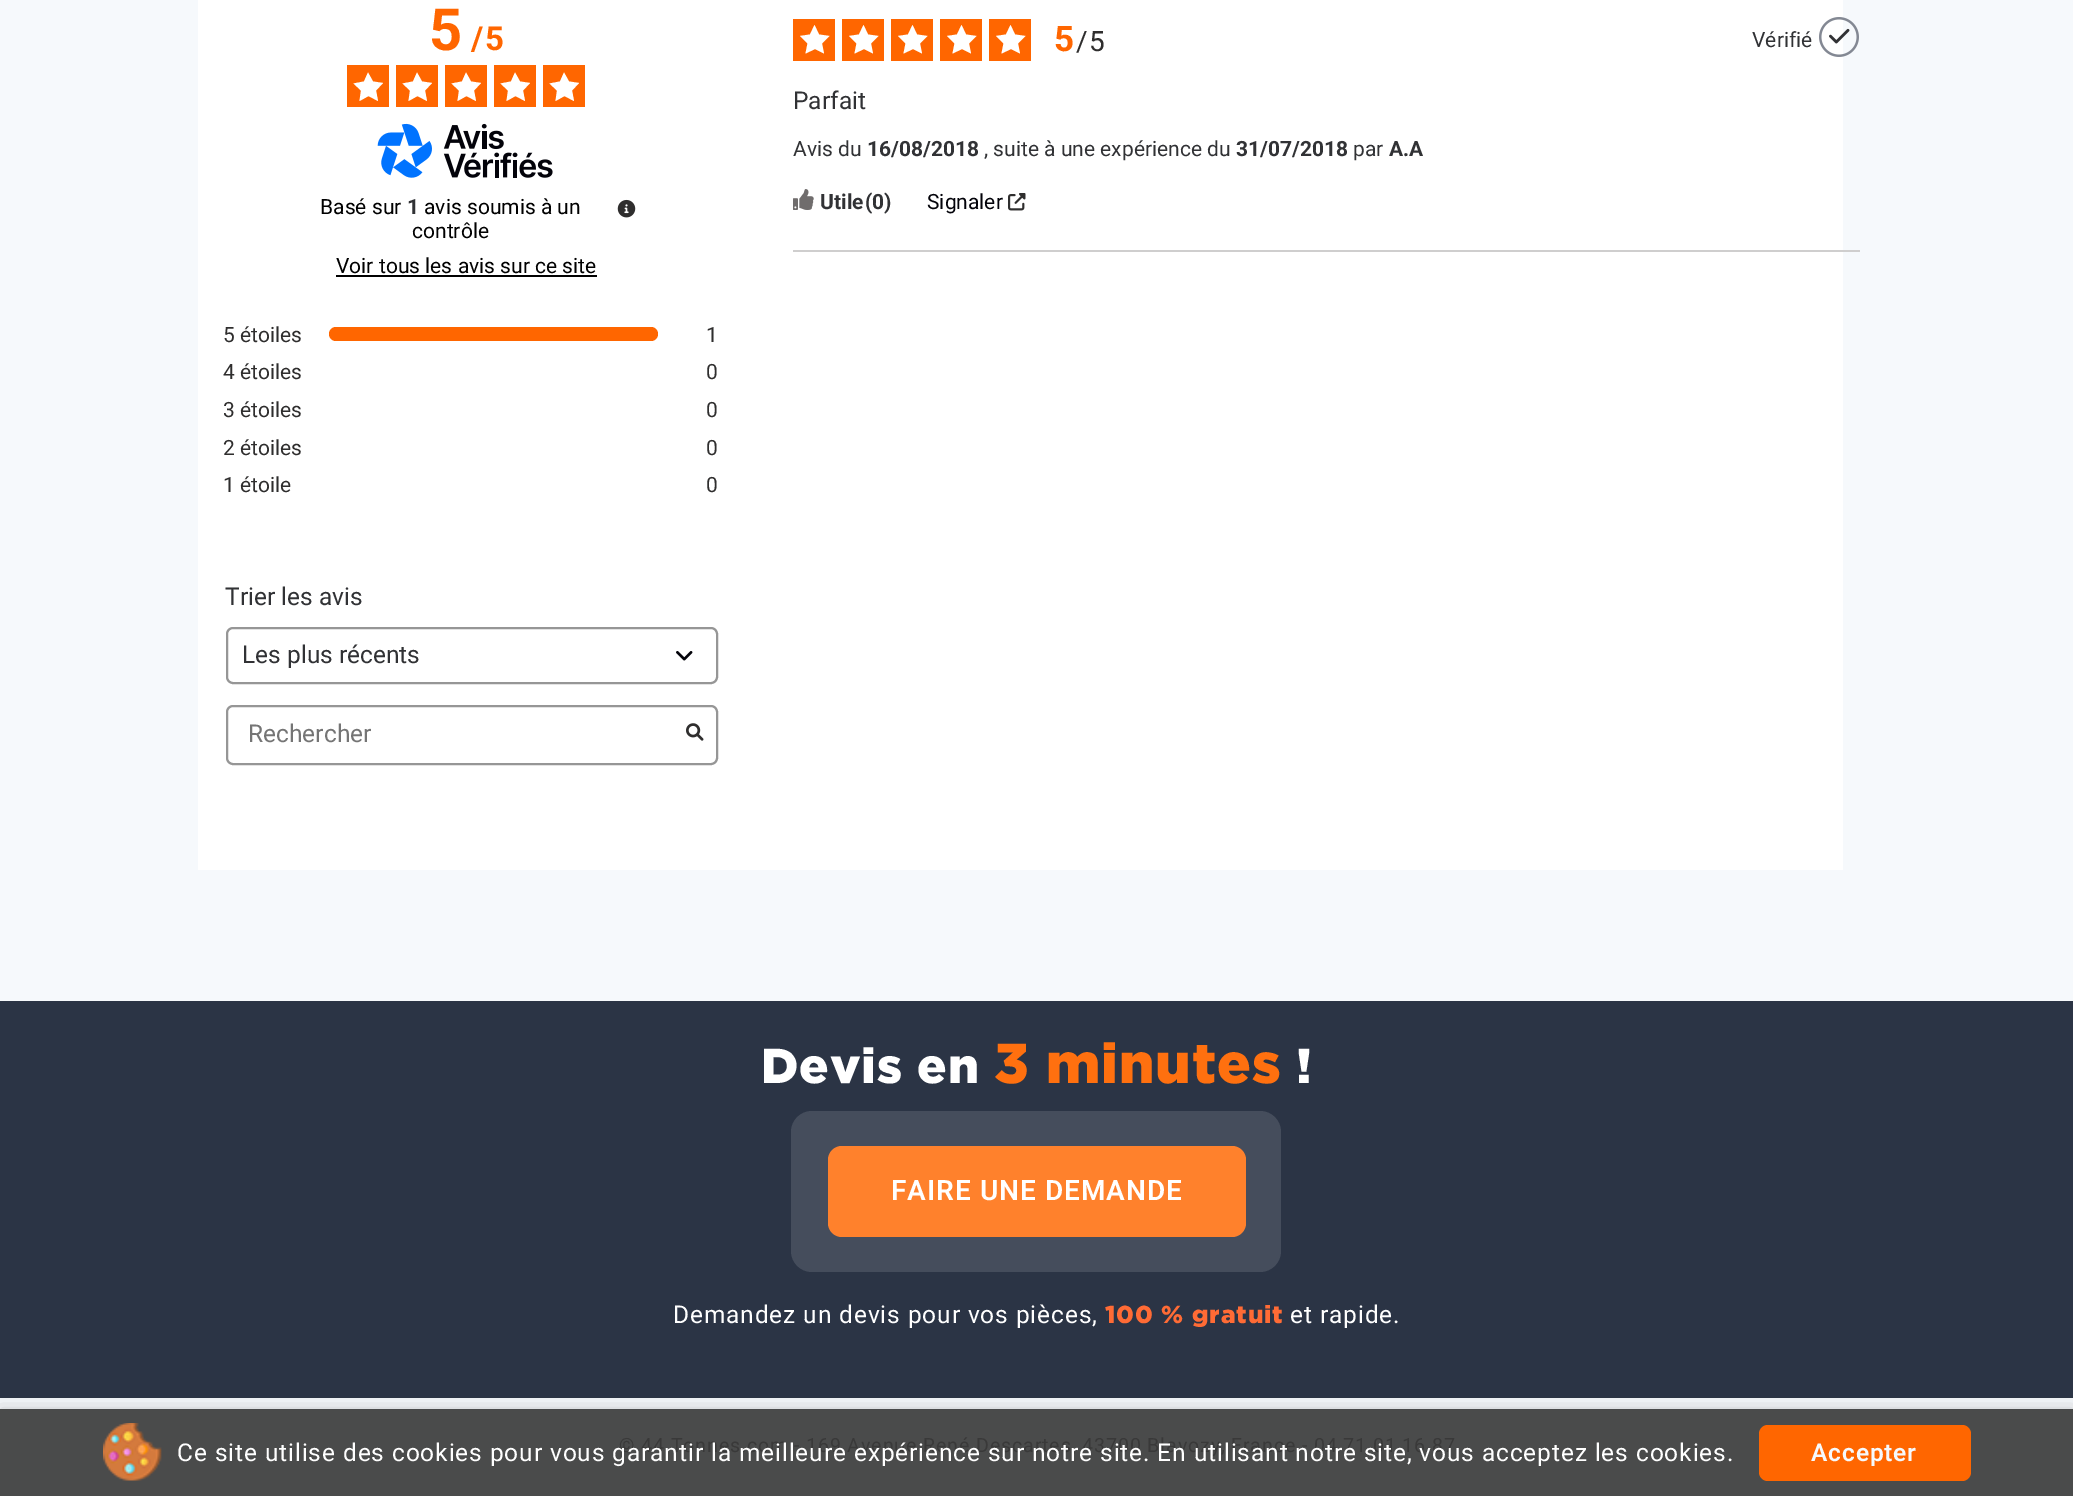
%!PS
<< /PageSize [2073 1496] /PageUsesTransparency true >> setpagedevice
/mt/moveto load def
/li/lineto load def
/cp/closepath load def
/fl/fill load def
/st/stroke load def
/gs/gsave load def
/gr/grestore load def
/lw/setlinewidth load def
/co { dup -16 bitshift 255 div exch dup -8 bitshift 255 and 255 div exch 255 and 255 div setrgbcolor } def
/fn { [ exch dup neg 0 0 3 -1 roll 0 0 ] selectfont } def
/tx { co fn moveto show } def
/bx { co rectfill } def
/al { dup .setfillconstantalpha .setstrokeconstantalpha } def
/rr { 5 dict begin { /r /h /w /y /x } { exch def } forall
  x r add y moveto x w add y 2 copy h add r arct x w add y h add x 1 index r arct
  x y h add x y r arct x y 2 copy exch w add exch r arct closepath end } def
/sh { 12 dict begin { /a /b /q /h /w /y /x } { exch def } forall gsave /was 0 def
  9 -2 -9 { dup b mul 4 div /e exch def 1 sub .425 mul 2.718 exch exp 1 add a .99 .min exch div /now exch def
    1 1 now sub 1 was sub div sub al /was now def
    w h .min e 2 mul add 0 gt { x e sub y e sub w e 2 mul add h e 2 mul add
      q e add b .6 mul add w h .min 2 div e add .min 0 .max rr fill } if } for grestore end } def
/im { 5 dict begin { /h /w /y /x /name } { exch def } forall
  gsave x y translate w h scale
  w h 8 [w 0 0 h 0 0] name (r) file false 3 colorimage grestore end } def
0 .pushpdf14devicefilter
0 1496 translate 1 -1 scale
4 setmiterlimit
0 0 2073 1496 16#F6F9FC bx
198 0 1645 870 16#FFFFFF bx
347 65 42 42 16#FF6600 bx
16#FFFFFF co
383 83 mt 376 90.5 li 378 101 li 368.5 96 li 359.5 101 li 361 90.5 li 353.5 83.5 li 364 81.5 li 368 72.5 li 373 81.5 li cp fl
396 65 42 42 16#FF6600 bx
16#FFFFFF co
432 83 mt 425 90.5 li 427 101 li 417.5 96 li 408.5 101 li 410 90.5 li 402.5 83.5 li 413 81.5 li 417 72.5 li 422 81.5 li cp fl
445 65 42 42 16#FF6600 bx
16#FFFFFF co
481 83 mt 474 90.5 li 476 101 li 466.5 96 li 457.5 101 li 459 90.5 li 451.5 83.5 li 462 81.5 li 466 72.5 li 471 81.5 li cp fl
494 65 42 42 16#FF6600 bx
16#FFFFFF co
530 83 mt 523 90.5 li 525 101 li 515.5 96 li 506.5 101 li 508 90.5 li 500.5 83.5 li 511 81.5 li 515 72.5 li 520 81.5 li cp fl
543 65 42 42 16#FF6600 bx
16#FFFFFF co
579 83 mt 572 90.5 li 574 101 li 564.5 96 li 555.5 101 li 557 90.5 li 549.5 83.5 li 560 81.5 li 564 72.5 li 569 81.5 li cp fl
(media/1.raw) 377 123 176 55 im
(media/2.raw) 617 199 19 19 im
336 275 261 2 16#010101 bx
16#FF6600 co
329 327 329 14 7 rr fl
(media/3.raw) 676 651 17 10 im
16#969696 co
2 lw
227 628 490 55 6 rr st
227 706 490 58 6 rr st
(media/4.raw) 686 723 18 18 im
793 250 1067 2 16#CFCECE bx
793 19 42 42 16#FF6600 bx
16#FFFFFF co
829.5 36 mt 822 43.5 li 824 53.5 li 815 49 li 805.5 53.5 li 807.5 43.5 li 800 36 li 810 34.5 li 814.5 25 li 819 34.5 li cp fl
842 19 42 42 16#FF6600 bx
16#FFFFFF co
878.5 36 mt 871 43.5 li 873 53.5 li 864 49 li 854.5 53.5 li 856.5 43.5 li 849 36 li 859 34.5 li 863.5 25 li 868 34.5 li cp fl
891 19 42 42 16#FF6600 bx
16#FFFFFF co
927.5 36 mt 920 43.5 li 922 53.5 li 913 49 li 903.5 53.5 li 905.5 43.5 li 898 36 li 908 34.5 li 912.5 25 li 917 34.5 li cp fl
940 19 42 42 16#FF6600 bx
16#FFFFFF co
976.5 36 mt 969 43.5 li 971 53.5 li 962 49 li 952.5 53.5 li 954.5 43.5 li 947 36 li 957 34.5 li 961.5 25 li 966 34.5 li cp fl
989 19 42 42 16#FF6600 bx
16#FFFFFF co
1025.5 36 mt 1018 43.5 li 1020 53.5 li 1011 49 li 1001.5 53.5 li 1003.5 43.5 li 996 36 li 1006 34.5 li 1010.5 25 li 1015 34.5 li cp fl
(media/5.raw) 1819 17 40 40 im
(media/6.raw) 793 189 21 21 im
(media/7.raw) 1008 193 18 18 im
0 1001 2073 397 16#2B3445 bx
16#FF700F co
828 1146 418 91 14 rr fl
0.12 al
16#FFFFFF co
791 1111 490 161 21 rr fl
1 al
0 1409 2073 87 16#4A4B4B bx
gs
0 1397 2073 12 rectclip
16#000000 co
0 1409 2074 87 0 9 .2 sh
gr
(media/8.raw) 103 1423 59 58 im
16#FF6600 co
1759 1425 212 56 9 rr fl
/Roboto-Bold 58 fn
429 50 mt -1 0 (5) ashow
/Roboto-Bold 33 fn
471 50 mt -1 0 (/) ashow
485 50 mt -1 0 (5) ashow
(Basé sur) 320 214 /Roboto-Regular 21 16#010101 tx
(1) 407 214 /Roboto-Bold 21 16#313235 tx
(avis soumis à un) 424 214 /Roboto-Regular 21 16#010101 tx
(contrôle) 412 238 /Roboto-Regular 21 16#010101 tx
(Voir tous les avis sur ce site) 336 273 /Roboto-Regular 21 16#010101 tx
(5 étoiles) 223 342 /Roboto-Regular 21 16#2F2E2E tx
(1) 706 342 /Roboto-Regular 21 16#2F2E2E tx
(4 étoiles) 223 379 /Roboto-Regular 21 16#2F2E2E tx
(0) 706 379 /Roboto-Regular 21 16#2F2E2E tx
(3 étoiles) 223 417 /Roboto-Regular 21 16#2F2E2E tx
(0) 706 417 /Roboto-Regular 21 16#2F2E2E tx
(2 étoiles) 223 455 /Roboto-Regular 21 16#2F2E2E tx
(0) 706 455 /Roboto-Regular 21 16#2F2E2E tx
(1 étoile) 223 492 /Roboto-Regular 21 16#2F2E2E tx
(0) 706 492 /Roboto-Regular 21 16#2F2E2E tx
(Trier les avis) 225 605 /Roboto-Regular 24.5 16#313235 tx
(Les plus récents) 242 663 /Roboto-Regular 24.5 16#313235 tx
(Rechercher) 248 742 /Roboto-Regular 24.5 16#757575 tx
/Roboto-Bold 35 fn
16#FF6600 co
1054 51 mt 1 0 (5) ashow
/Roboto-Regular 28 fn
16#2F2E2E co
1076 51 mt 1 0 (/5) ashow
(Vérifié) 1752 47 /Roboto-Regular 21 16#313235 tx
(Parfait) 793 109 /Roboto-Regular 24.5 16#313235 tx
(Avis du) 793 156 /Roboto-Regular 21 16#313235 tx
(16/08/2018) 867 156 /Roboto-Bold 21 16#313235 tx
(, suite à une expérience du) 984 156 /Roboto-Regular 21 16#313235 tx
(31/07/2018) 1236 156 /Roboto-Bold 21 16#313235 tx
(par) 1353 156 /Roboto-Regular 21 16#313235 tx
(A.A) 1389 156 /Roboto-Bold 21 16#313235 tx
(Utile) 820 209 /Roboto-Bold 21 16#313235 tx
(\(0\)) 865 209 /Roboto-Bold 21 16#313235 tx
(Signaler) 927 209 /Roboto-Regular 21 16#03030A tx
/Gotham-Black 49 fn
16#FFFFFF co
761 1083 mt .88 0 (Devis en) ashow
/Gotham-Black 56 fn
16#FF700F co
994 1083 mt .88 0 (3 minutes) ashow
/Gotham-Black 49 fn
16#FFFFFF co
1296 1083 mt .88 0 (!) ashow
/Roboto-SemiBold 28 fn
891 1200 mt 1 0 (FAIRE UNE DEMANDE) ashow
/Roboto-Regular 24.5 fn
673 1323 mt .88 0 (Demandez un devis pour vos pièces,) ashow
/Gotham-Black 24.5 fn
16#FF6B35 co
1105 1323 mt .88 0 (100 % gratuit) ashow
/Roboto-Regular 24.5 fn
16#FFFFFF co
1290 1323 mt .88 0 (et rapide.) ashow
/Roboto-Regular 19.6 fn
16#393939 co
619 1452 mt .88 0 (© 44 Tonnes.com - 169 Avenue René Descartes, 43700 Blavozy, France - 04 71 01 16 87) ashow
/Roboto-Regular 24.5 fn
16#FFFFFF co
177 1461 mt .88 0 (Ce site utilise des cookies pour vous garantir la meilleure expérience sur notre site. En utilisant notre site, vous acceptez les cookies.) ashow
/Roboto-SemiBold 24.5 fn
16#F6F9FC co
1811 1461 mt .88 0 (Accepter) ashow
.poppdf14devicefilter showpage
